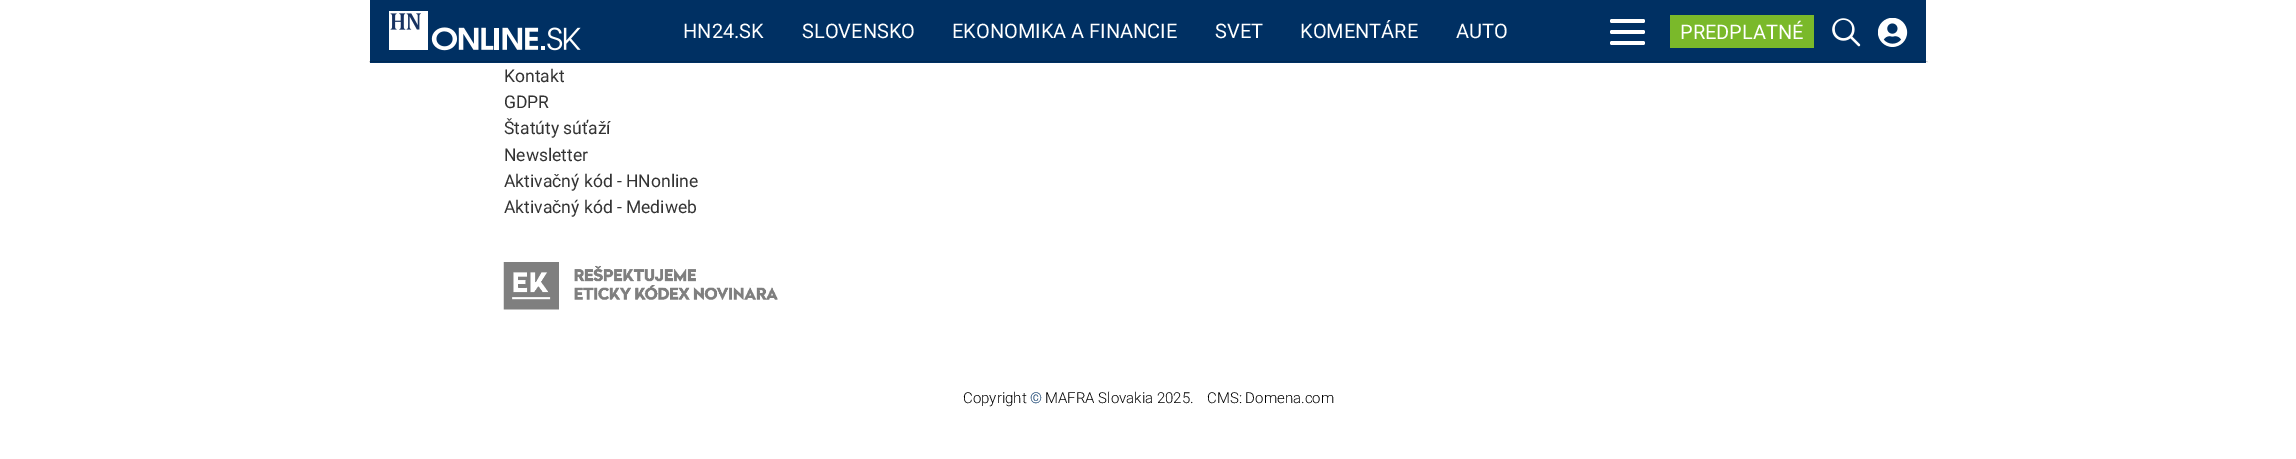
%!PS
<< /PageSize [2296 459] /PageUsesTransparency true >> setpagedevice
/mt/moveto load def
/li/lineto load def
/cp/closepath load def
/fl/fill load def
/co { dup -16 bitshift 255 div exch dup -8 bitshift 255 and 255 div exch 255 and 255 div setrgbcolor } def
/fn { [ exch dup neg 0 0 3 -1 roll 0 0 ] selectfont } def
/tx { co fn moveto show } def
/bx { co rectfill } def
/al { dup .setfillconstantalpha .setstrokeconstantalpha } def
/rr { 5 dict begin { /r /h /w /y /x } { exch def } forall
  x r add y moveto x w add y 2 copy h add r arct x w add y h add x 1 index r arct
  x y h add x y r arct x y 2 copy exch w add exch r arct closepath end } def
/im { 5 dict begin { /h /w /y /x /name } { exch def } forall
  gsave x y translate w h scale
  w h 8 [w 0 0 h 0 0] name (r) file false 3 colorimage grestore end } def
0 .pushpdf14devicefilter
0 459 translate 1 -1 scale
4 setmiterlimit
0 0 2296 459 16#FFFFFF bx
370 0 1556 63 16#003063 bx
(media/1.raw) 389 11 192 40 im
16#FFFFFF co
1610 30 35 4 2 rr fl
1610 19 35 4 2 rr fl
1610 41 35 4 2 rr fl
16#D9D9D9 co
1927.5 61 mt 1927.5 62.5 li 1926 61 li cp fl
0.15 al
16#000000 co
1928 62 mt 369 62 li 370 61 li 1926 61 li cp fl
1 al
16#C8C8C8 co
369 62.5 mt 369 61 li 370 61 li cp fl
1670 15 144 33 16#7AB92A bx
(media/2.raw) 1832 18 29 29 im
(media/3.raw) 1878 18 30 29 im
(media/4.raw) 503 262 275 48 im
(HN24.SK) 683 38 /Roboto-Regular 20 16#FFFFFF tx
(SLOVENSKO) 802 38 /Roboto-Regular 20 16#FFFFFF tx
(EKONOMIKA A FINANCIE) 952 38 /Roboto-Regular 20 16#FFFFFF tx
(SVET) 1215 38 /Roboto-Regular 20 16#FFFFFF tx
(KOMENTÁRE) 1300 38 /Roboto-Regular 20 16#FFFFFF tx
(AUTO) 1456 38 /Roboto-Regular 20 16#FFFFFF tx
(PREDPLATNÉ) 1680 39 /Roboto-Regular 20 16#FFFFFF tx
(Kontakt) 504 82 /Roboto-Regular 17.5 16#333333 tx
(GDPR) 504 108 /Roboto-Regular 17.5 16#333333 tx
(Štatúty súťaží) 504 134 /Roboto-Regular 17.5 16#333333 tx
(Newsletter) 504 161 /Roboto-Regular 17.5 16#333333 tx
(Aktivačný kód - HNonline) 504 187 /Roboto-Regular 17.5 16#333333 tx
(Aktivačný kód - Mediweb) 504 213 /Roboto-Regular 17.5 16#333333 tx
(Copyright) 963 403 /Roboto-Light 15 16#000000 tx
(©) 1030 403 /Roboto-Light 15 16#003063 tx
(MAFRA Slovakia 2025.) 1045 403 /Roboto-Light 15 16#000000 tx
(CMS: Domena.com) 1207 403 /Roboto-Light 15 16#000000 tx
.poppdf14devicefilter showpage
